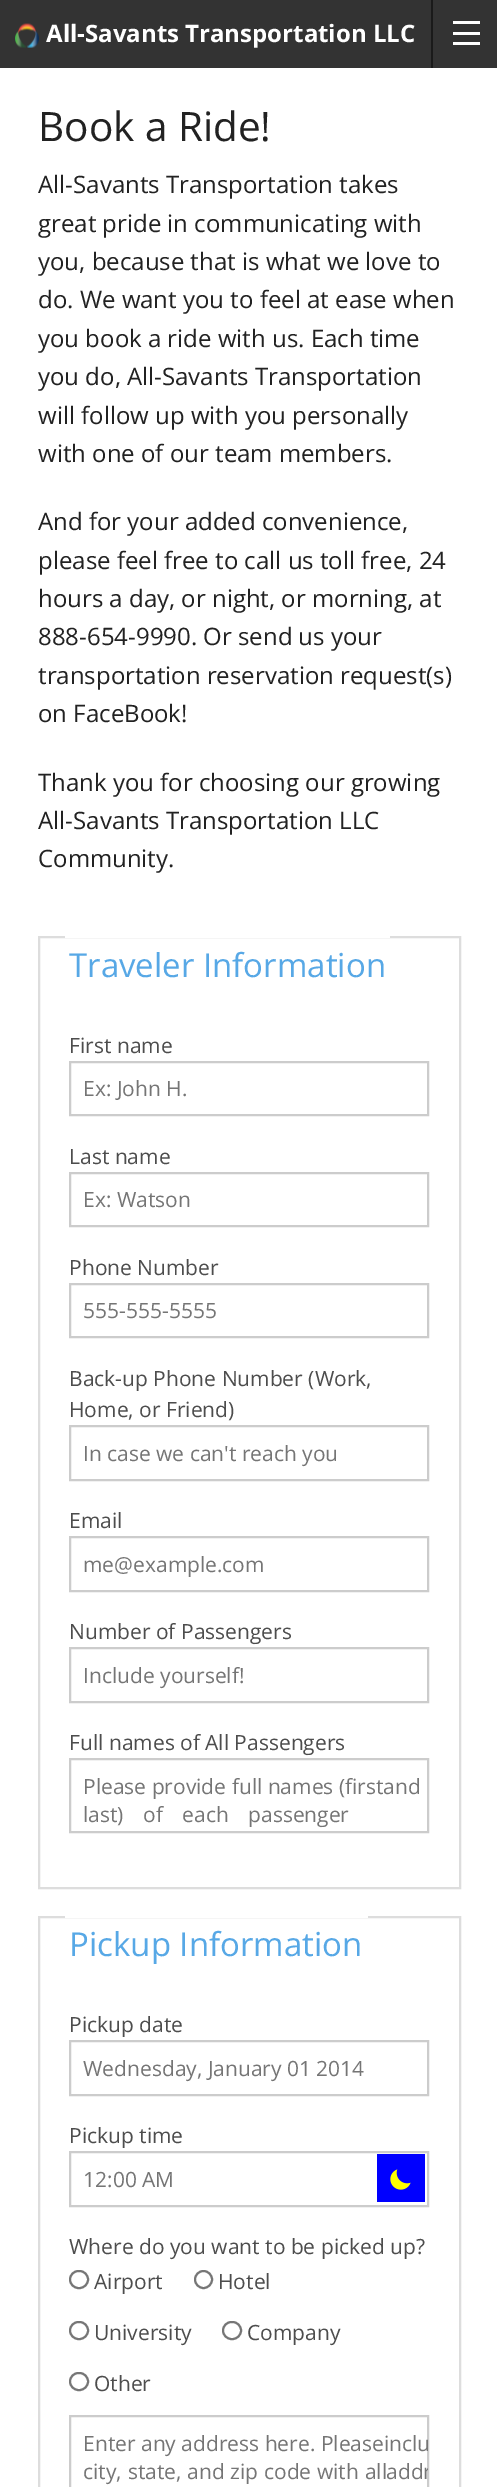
%!PS
<< /PageSize [497 2487] >> setpagedevice
/mt/moveto load def
/st/stroke load def
/gs/gsave load def
/gr/grestore load def
/lw/setlinewidth load def
/co { dup -16 bitshift 255 div exch dup -8 bitshift 255 and 255 div exch 255 and 255 div setrgbcolor } def
/fn { [ exch dup neg 0 0 3 -1 roll 0 0 ] selectfont } def
/tx { co fn moveto show } def
/bx { co rectfill } def
/ci { newpath 0 360 arc closepath } def
/rr { 5 dict begin { /r /h /w /y /x } { exch def } forall
  x r add y moveto x w add y 2 copy h add r arct x w add y h add x 1 index r arct
  x y h add x y r arct x y 2 copy exch w add exch r arct closepath end } def
/im { 5 dict begin { /h /w /y /x /name } { exch def } forall
  gsave x y translate w h scale
  w h 8 [w 0 0 h 0 0] name (r) file false 3 colorimage grestore end } def
0 2487 translate 1 -1 scale
4 setmiterlimit
0 0 497 2487 16#FFFFFF bx
0 0 497 68 16#333333 bx
(media/1.raw) 15 23 24 25 im
431 0 2 68 16#1A1A1A bx
453 42 27 3 16#FFFFFF bx
453 32 27 3 16#FFFFFF bx
453 21 27 3 16#FFFFFF bx
16#DDDDDD co
2 lw
39 937 421 951 rectstroke
65 936 325 2 16#FFFFFF bx
16#CCCCCC co
70 1062 358 53 rectstroke
70 1173 358 53 rectstroke
70 1284 358 53 rectstroke
70 1426 358 54 rectstroke
70 1537 358 54 rectstroke
70 1648 358 54 rectstroke
70 1759 358 73 rectstroke
16#DDDDDD co
39 1917 421 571 rectstroke
65 1916 303 2 16#FFFFFF bx
16#CCCCCC co
70 2041 358 54 rectstroke
70 2152 358 54 rectstroke
377 2154 48 48 16#0000FF bx
(media/2.raw) 390 2169 21 21 im
16#767676 co
70 2271 18 17 8.5 rr st
203.5 2279.5 8.5 ci st
70 2322 18 17 8.5 rr st
223 2322 18 17 8.5 rr st
70 2373 18 17 8.5 rr st
16#CCCCCC co
70 2416 358 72 rectstroke
(All-Savants Transportation LLC) 46 42 /OpenSans-Bold 24 16#FFFFFF tx
(Book a Ride!) 38 141 /OpenSans-Regular 40.5 16#222222 tx
(All-Savants Transportation takes) 38 193 /OpenSans-Regular 24 16#222222 tx
(great pride in communicating with) 38 232 /OpenSans-Regular 24 16#222222 tx
(you, because that is what we love to) 38 270 /OpenSans-Regular 24 16#222222 tx
(do. We want you to feel at ease when) 38 308 /OpenSans-Regular 24 16#222222 tx
(you book a ride with us. Each time) 38 347 /OpenSans-Regular 24 16#222222 tx
(you do, All-Savants Transportation) 38 385 /OpenSans-Regular 24 16#222222 tx
(will follow up with you personally) 38 424 /OpenSans-Regular 24 16#222222 tx
(with one of our team members.) 38 462 /OpenSans-Regular 24 16#222222 tx
(And for your added convenience,) 38 530 /OpenSans-Regular 24 16#222222 tx
(please feel free to call us toll free, 24) 38 569 /OpenSans-Regular 24 16#222222 tx
(hours a day, or night, or morning, at) 38 607 /OpenSans-Regular 24 16#222222 tx
(888-654-9990. Or send us your) 38 645 /OpenSans-Regular 24 16#222222 tx
(transportation reservation request\(s\)) 38 684 /OpenSans-Regular 24 16#222222 tx
(on FaceBook!) 38 722 /OpenSans-Regular 24 16#222222 tx
(Thank you for choosing our growing) 38 791 /OpenSans-Regular 24 16#222222 tx
(All-Savants Transportation LLC) 38 829 /OpenSans-Regular 24 16#222222 tx
(Community.) 38 867 /OpenSans-Regular 24 16#222222 tx
(Traveler Information) 69 977 /OpenSans-Regular 33 16#57A8E6 tx
(First name) 69 1053 /OpenSans-Regular 21 16#4D4D4D tx
(Ex: John H.) 83 1096 /OpenSans-Regular 21 16#757575 tx
(Last name) 69 1164 /OpenSans-Regular 21 16#4D4D4D tx
(Ex: Watson) 83 1207 /OpenSans-Regular 21 16#757575 tx
(Phone Number) 69 1275 /OpenSans-Regular 21 16#4D4D4D tx
(555-555-5555) 83 1318 /OpenSans-Regular 21 16#757575 tx
(Back-up Phone Number \(Work,) 69 1386 /OpenSans-Regular 21 16#4D4D4D tx
(Home, or Friend\)) 69 1417 /OpenSans-Regular 21 16#4D4D4D tx
(In case we can't reach you) 83 1461 /OpenSans-Regular 21 16#757575 tx
(Email) 69 1528 /OpenSans-Regular 21 16#4D4D4D tx
(me@example.com) 83 1572 /OpenSans-Regular 21 16#757575 tx
(Number of Passengers) 69 1639 /OpenSans-Regular 21 16#4D4D4D tx
(Include yourself!) 83 1683 /OpenSans-Regular 21 16#757575 tx
(Full names of All Passengers) 69 1750 /OpenSans-Regular 21 16#4D4D4D tx
(Please provide full names \(firstand) 83 1794 /OpenSans-Regular 21 16#757575 tx
83 1822 mt 14 0 32 (last\) of each passenger) widthshow
(Pickup Information) 69 1956 /OpenSans-Regular 33 16#57A8E6 tx
(Pickup date) 69 2032 /OpenSans-Regular 21 16#4D4D4D tx
(Wednesday, January 01 2014) 83 2076 /OpenSans-Regular 21 16#757575 tx
(Pickup time) 69 2143 /OpenSans-Regular 21 16#4D4D4D tx
(12:00 AM) 83 2187 /OpenSans-Regular 21 16#757575 tx
(Where do you want to be picked up?) 69 2254 /OpenSans-Regular 21 16#4D4D4D tx
(Airport) 94 2289 /OpenSans-Regular 21 16#4D4D4D tx
(Hotel) 218 2289 /OpenSans-Regular 21 16#4D4D4D tx
(University) 94 2340 /OpenSans-Regular 21 16#4D4D4D tx
(Company) 247 2340 /OpenSans-Regular 21 16#4D4D4D tx
(Other) 94 2391 /OpenSans-Regular 21 16#4D4D4D tx
(Enter any address here. Pleaseinclu) 83 2451 /OpenSans-Regular 21 16#757575 tx
83 2479 mt .25 0 32 (city, state, and zip code with all) widthshow
gs
71 2417 357 70 rectclip
(addr) 386 2479 /OpenSans-Regular 21 16#757575 tx
gr
showpage
